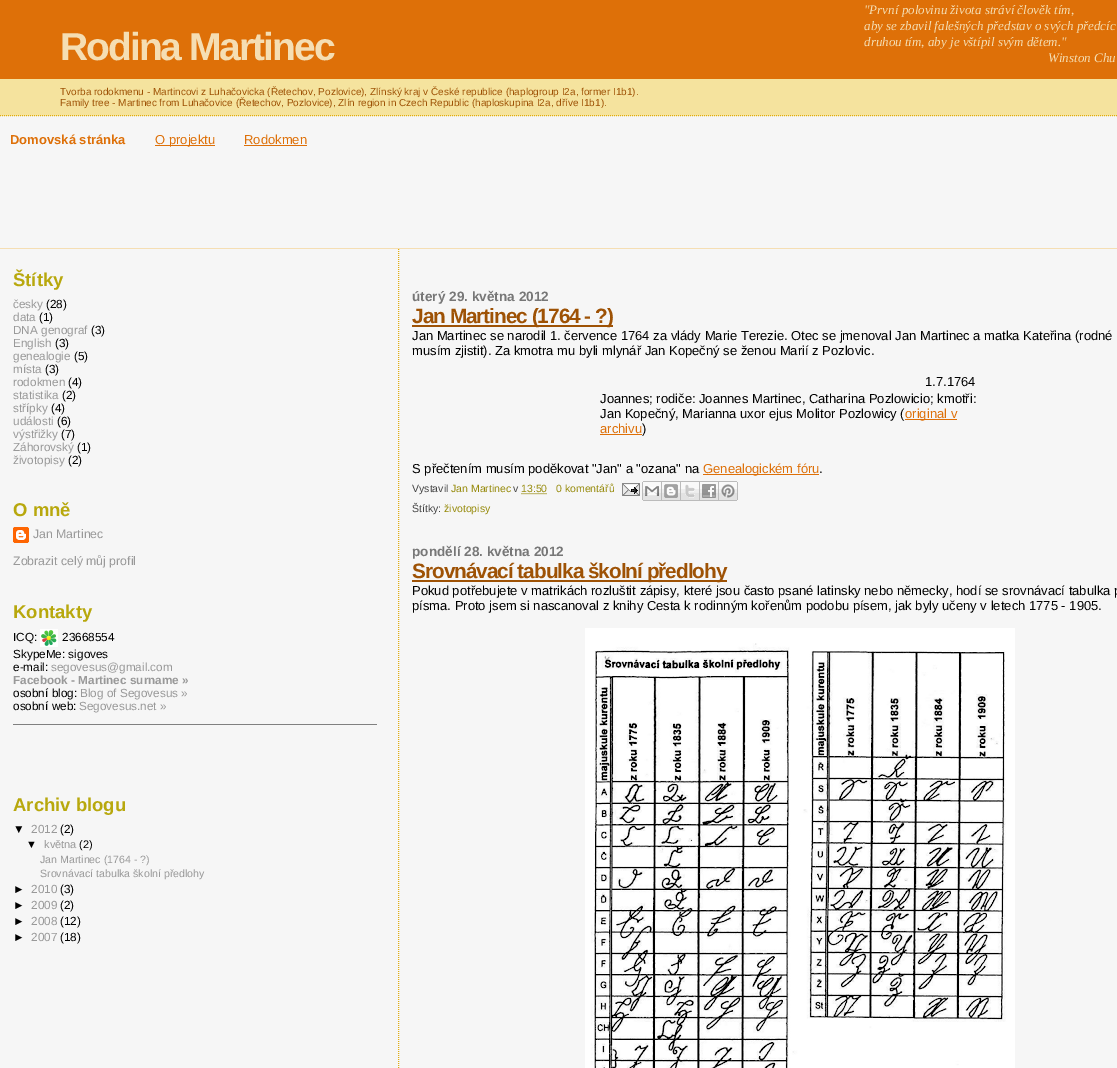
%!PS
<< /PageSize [1117 1068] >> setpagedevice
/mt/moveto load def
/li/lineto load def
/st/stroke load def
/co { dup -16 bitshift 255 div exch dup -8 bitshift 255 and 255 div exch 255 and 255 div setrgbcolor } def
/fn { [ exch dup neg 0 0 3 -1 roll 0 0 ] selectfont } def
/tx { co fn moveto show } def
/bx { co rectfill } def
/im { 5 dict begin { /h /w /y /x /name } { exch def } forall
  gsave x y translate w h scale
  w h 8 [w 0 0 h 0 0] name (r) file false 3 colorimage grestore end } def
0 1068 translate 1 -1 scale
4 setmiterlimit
0 0 1117 1068 16#F6F6F6 bx
0 79 1117 37 16#F5E39E bx
16#E0AD12 co
[1 1] 0 setdash
0 115.5 mt 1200 115.5 li st
0 0 1117 79 16#DE7008 bx
0 248 1117 1 16#F5DEB3 bx
155 145 60 1 16#DE7008 bx
244 145 63 1 16#DE7008 bx
(media/1.raw) 13 527 16 16 im
(media/2.raw) 40 629 18 18 im
13 724 364 1 16#808080 bx
16#E0AD12 co
398.5 249 mt 398.5 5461 li st
412 325 201 2 16#9E5205 bx
905 419 52 1 16#DE7008 bx
600 434 42 1 16#DE7008 bx
703 474 116 1 16#DE7008 bx
16#968A0A co
521.5 493.5 mt 547.5 493.5 li st
(media/3.raw) 622 483 18 13 im
(media/4.raw) 642 481 20 20 im
(media/5.raw) 662 481 19 20 im
(media/6.raw) 681 481 19 20 im
(media/7.raw) 700 481 19 20 im
(media/8.raw) 719 481 19 20 im
412 580 315 2 16#9E5205 bx
(media/9.raw) 585 628 430 440 im
/LiberationSans-Bold 39 fn
16#F5DEB3 co
60 60 mt -2 0 (Rodina Martinec) ashow
(Tvorba rodokmenu - Martincovi z Luhačovicka \(Řetechov, Pozlovice\), Zlínský kraj v České republice \(haplogroup I2a, former I1b1\).) 60 95 /LiberationSans-Regular 10 16#9E5205 tx
(Family tree - Martinec from Luhačovice \(Řetechov, Pozlovice\), Zlín region in Czech Republic \(haploskupina I2a, dříve I1b1\).) 60 106 /LiberationSans-Regular 10 16#9E5205 tx
("První polovinu života stráví člověk tím,) 864 14 /LiberationSerif-Italic 13 16#F5DEB3 tx
(aby se zbavil falešných představ o svých předcíc) 864 30 /LiberationSerif-Italic 13 16#F5DEB3 tx
(druhou tím, aby je vštípil svým dětem.") 864 46 /LiberationSerif-Italic 13 16#F5DEB3 tx
(Winston Chu) 1048 62 /LiberationSerif-Italic 13 16#F5DEB3 tx
(Domovská stránka) 10 144 /LiberationSans-Bold 13 16#DE7008 tx
(O projektu) 155 144 /LiberationSans-Regular 13 16#DE7008 tx
(Rodokmen) 244 144 /LiberationSans-Regular 13 16#DE7008 tx
(Štítky) 13 286 /LiberationSans-Bold 18.5 16#B8A80D tx
(česky) 13 308 /LiberationSans-Regular 11.75 16#999999 tx
(\(28\)) 46 308 /LiberationSans-Regular 11.75 16#000000 tx
(data) 13 321 /LiberationSans-Regular 11.75 16#999999 tx
(\(1\)) 39 321 /LiberationSans-Regular 11.75 16#000000 tx
(DNA genograf) 13 334 /LiberationSans-Regular 11.75 16#999999 tx
(\(3\)) 91 334 /LiberationSans-Regular 11.75 16#000000 tx
(English) 13 347 /LiberationSans-Regular 11.75 16#999999 tx
(\(3\)) 55 347 /LiberationSans-Regular 11.75 16#000000 tx
(genealogie) 13 360 /LiberationSans-Regular 11.75 16#999999 tx
(\(5\)) 74 360 /LiberationSans-Regular 11.75 16#000000 tx
(místa) 13 373 /LiberationSans-Regular 11.75 16#999999 tx
(\(3\)) 45 373 /LiberationSans-Regular 11.75 16#000000 tx
(rodokmen) 13 386 /LiberationSans-Regular 11.75 16#999999 tx
(\(4\)) 68 386 /LiberationSans-Regular 11.75 16#000000 tx
(statistika) 13 399 /LiberationSans-Regular 11.75 16#999999 tx
(\(2\)) 62 399 /LiberationSans-Regular 11.75 16#000000 tx
(střípky) 13 412 /LiberationSans-Regular 11.75 16#999999 tx
(\(4\)) 51 412 /LiberationSans-Regular 11.75 16#000000 tx
(události) 13 425 /LiberationSans-Regular 11.75 16#999999 tx
(\(6\)) 57 425 /LiberationSans-Regular 11.75 16#000000 tx
(výstřižky) 13 438 /LiberationSans-Regular 11.75 16#999999 tx
(\(7\)) 61 438 /LiberationSans-Regular 11.75 16#000000 tx
(Záhorovský) 13 451 /LiberationSans-Regular 11.75 16#999999 tx
(\(1\)) 77 451 /LiberationSans-Regular 11.75 16#000000 tx
(životopisy) 13 464 /LiberationSans-Regular 11.75 16#999999 tx
(\(2\)) 68 464 /LiberationSans-Regular 11.75 16#000000 tx
(O mně) 13 516 /LiberationSans-Bold 18.5 16#B8A80D tx
(Jan Martinec) 33 538 /LiberationSans-Regular 12.3 16#999999 tx
(Zobrazit celý můj profil) 13 565 /LiberationSans-Regular 12.3 16#999999 tx
(Kontakty) 13 618 /LiberationSans-Bold 18.5 16#B8A80D tx
(ICQ:) 13 641 /LiberationSans-Regular 11.75 16#000000 tx
(23668554) 62 641 /LiberationSans-Regular 11.75 16#000000 tx
(SkypeMe: sigoves) 13 658 /LiberationSans-Regular 11.75 16#000000 tx
(e-mail:) 13 671 /LiberationSans-Regular 11.75 16#000000 tx
(segovesus@gmail.com) 51 671 /LiberationSans-Regular 11.75 16#999999 tx
(Facebook - Martinec surname ») 13 684 /LiberationSans-Bold 11.75 16#999999 tx
(osobní blog:) 13 697 /LiberationSans-Regular 11.75 16#000000 tx
(Blog of Segovesus ») 80 697 /LiberationSans-Regular 11.75 16#999999 tx
(osobní web:) 13 710 /LiberationSans-Regular 11.75 16#000000 tx
(Segovesus.net ») 79 710 /LiberationSans-Regular 11.75 16#999999 tx
(Archiv blogu) 13 811 /LiberationSans-Bold 18.5 16#B8A80D tx
(▼) 13 833 /LiberationSans-Regular 11.75 16#000000 tx
(2012) 31 833 /LiberationSans-Regular 11.75 16#999999 tx
(\(2\)) 60 833 /LiberationSans-Regular 11.75 16#000000 tx
(▼) 26 848 /LiberationSans-Regular 11 16#000000 tx
(května) 44 848 /LiberationSans-Regular 11 16#999999 tx
(\(2\)) 79 848 /LiberationSans-Regular 11 16#000000 tx
(Jan Martinec \(1764 - ?\)) 40 863 /LiberationSans-Regular 10.6 16#999999 tx
(Srovnávací tabulka školní předlohy) 40 877 /LiberationSans-Regular 10.6 16#999999 tx
(►) 13 893 /LiberationSans-Regular 11.75 16#000000 tx
(2010) 31 893 /LiberationSans-Regular 11.75 16#999999 tx
(\(3\)) 60 893 /LiberationSans-Regular 11.75 16#000000 tx
(►) 13 909 /LiberationSans-Regular 11.75 16#000000 tx
(2009) 31 909 /LiberationSans-Regular 11.75 16#999999 tx
(\(2\)) 60 909 /LiberationSans-Regular 11.75 16#000000 tx
(►) 13 925 /LiberationSans-Regular 11.75 16#000000 tx
(2008) 31 925 /LiberationSans-Regular 11.75 16#999999 tx
(\(12\)) 60 925 /LiberationSans-Regular 11.75 16#000000 tx
(►) 13 941 /LiberationSans-Regular 11.75 16#000000 tx
(2007) 31 941 /LiberationSans-Regular 11.75 16#999999 tx
(\(18\)) 60 941 /LiberationSans-Regular 11.75 16#000000 tx
(úterý 29. května 2012) 412 301 /LiberationSans-Bold 13.6 16#777777 tx
/LiberationSans-Bold 20.75 fn
16#9E5205 co
412 323 mt -1 0 (Jan Martinec \(1764 - ?\)) ashow
(Jan Martinec se narodil 1. července 1764 za vlády Marie Terezie. Otec se jmenoval Jan Martinec a matka Kateřina \(rodné) 412 340 /LiberationSans-Regular 13 16#000000 tx
(musím zjistit\). Za kmotra mu byli mlynář Jan Kopečný se ženou Marií z Pozlovic.) 412 355 /LiberationSans-Regular 13 16#000000 tx
(1.7.1764) 925 386 /LiberationSans-Regular 13 16#000000 tx
(Joannes; rodiče: Joannes Martinec, Catharina Pozlowicio; kmotři:) 600 403 /LiberationSans-Regular 13 16#000000 tx
(Jan Kopečný, Marianna uxor ejus Molitor Pozlowicy \() 600 418 /LiberationSans-Regular 13 16#000000 tx
(original v) 905 418 /LiberationSans-Regular 13 16#DE7008 tx
(archivu) 600 433 /LiberationSans-Regular 13 16#DE7008 tx
(\)) 642 433 /LiberationSans-Regular 13 16#000000 tx
(S přečtením musím poděkovat "Jan" a "ozana" na) 412 473 /LiberationSans-Regular 13 16#000000 tx
(Genealogickém fóru) 703 473 /LiberationSans-Regular 13 16#DE7008 tx
(.) 819 473 /LiberationSans-Regular 13 16#000000 tx
(Vystavil) 412 492 /LiberationSans-Regular 10.5 16#444444 tx
(Jan Martinec) 451 492 /LiberationSans-Regular 10.5 16#968A0A tx
(v) 513 492 /LiberationSans-Regular 10.5 16#444444 tx
(13:50) 521 492 /LiberationSans-Regular 10.5 16#968A0A tx
(0 komentářů) 556 492 /LiberationSans-Regular 10.5 16#968A0A tx
(Štítky:) 412 512 /LiberationSans-Regular 10.5 16#444444 tx
(životopisy) 444 512 /LiberationSans-Regular 10.5 16#968A0A tx
(pondělí 28. května 2012) 412 556 /LiberationSans-Bold 13.6 16#777777 tx
/LiberationSans-Bold 20.75 fn
16#9E5205 co
412 578 mt -1 0 (Srovnávací tabulka školní předlohy) ashow
(Pokud potřebujete v matrikách rozluštit zápisy, které jsou často psané latinsky nebo německy, hodí se srovnávací tabulka p) 412 595 /LiberationSans-Regular 13 16#000000 tx
(písma. Proto jsem si nascanoval z knihy Cesta k rodinným kořenům podobu písem, jak byly učeny v letech 1775 - 1905.) 412 610 /LiberationSans-Regular 13 16#000000 tx
showpage
